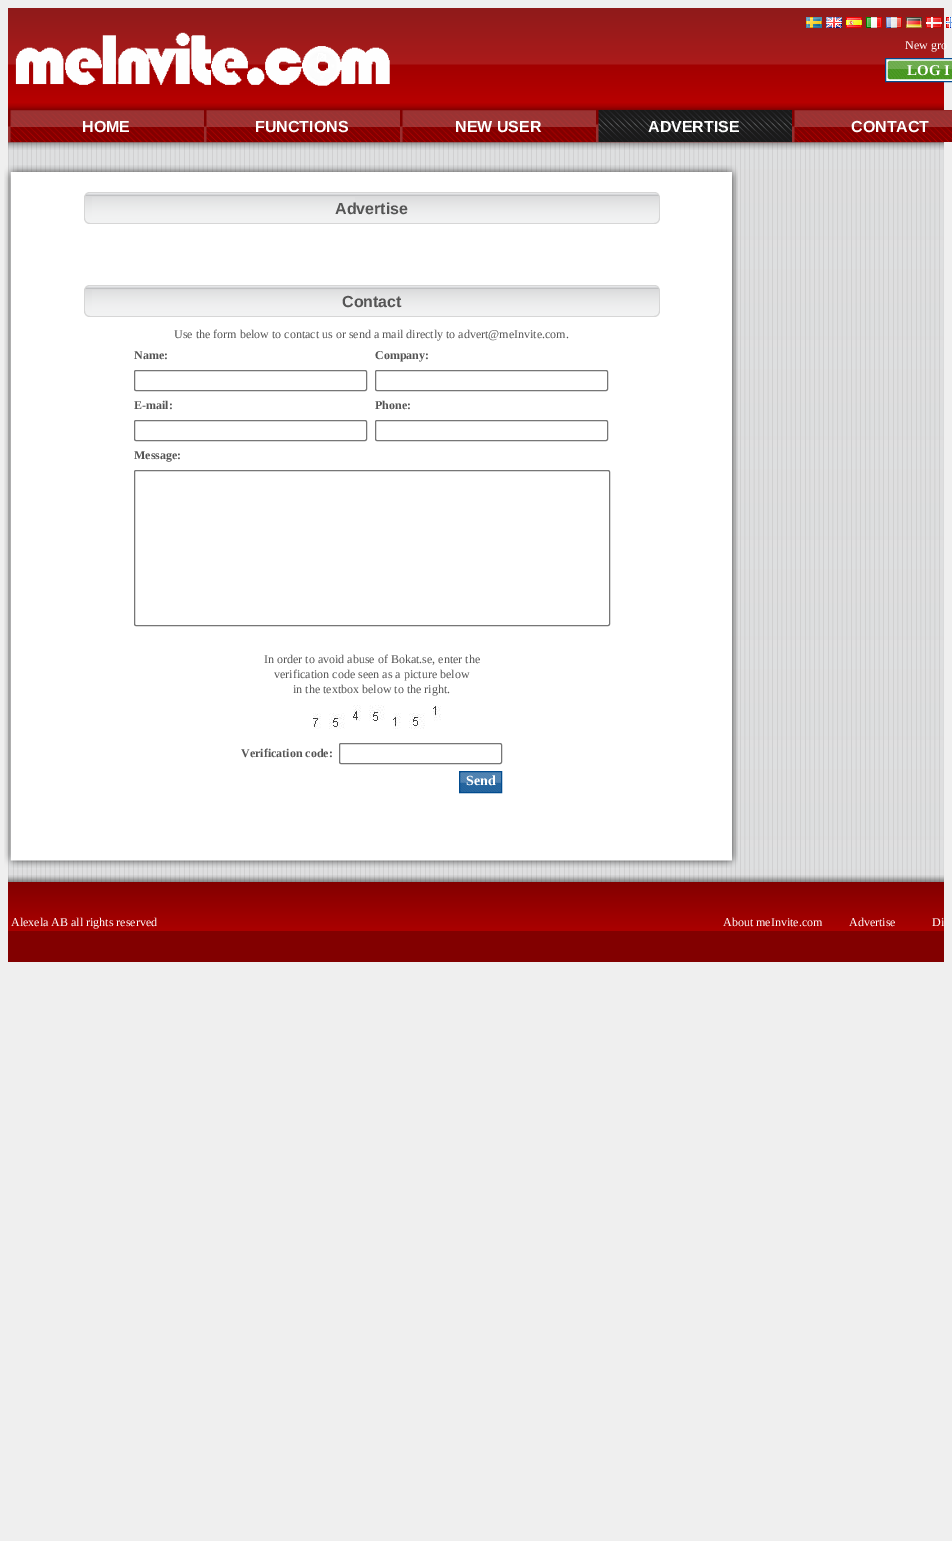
%!PS
<< /PageSize [952 1541] >> setpagedevice
/st/stroke load def
/co { dup -16 bitshift 255 div exch dup -8 bitshift 255 and 255 div exch 255 and 255 div setrgbcolor } def
/fn { [ exch dup neg 0 0 3 -1 roll 0 0 ] selectfont } def
/tx { co fn moveto show } def
/bx { co rectfill } def
/rr { 5 dict begin { /r /h /w /y /x } { exch def } forall
  x r add y moveto x w add y 2 copy h add r arct x w add y h add x 1 index r arct
  x y h add x y r arct x y 2 copy exch w add exch r arct closepath end } def
/im { 5 dict begin { /h /w /y /x /name } { exch def } forall
  gsave x y translate w h scale
  w h 8 [w 0 0 h 0 0] name (r) file false 3 colorimage grestore end } def
0 1541 translate 1 -1 scale
4 setmiterlimit
0 0 952 1541 16#EFEFEF bx
(media/1.raw) 8 8 936 102 im
(media/2.raw) 15 32 375 54 im
(media/3.raw) 806 17 16 11 im
(media/4.raw) 826 17 16 11 im
(media/5.raw) 846 17 16 11 im
(media/6.raw) 866 17 16 11 im
(media/7.raw) 886 17 16 11 im
(media/8.raw) 906 17 16 11 im
(media/9.raw) 926 17 16 11 im
(media/10.raw) 946 17 6 11 im
(media/11.raw) 886 59 66 22 im
16#024C8F co
885.5 58.5 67 23 rectstroke
(media/18.raw) 8 142 936 740 im
(media/12.raw) 8 103 936 47 im
(media/13.raw) 8 110 196 32 im
(media/14.raw) 204 110 196 32 im
(media/15.raw) 400 110 196 32 im
(media/16.raw) 596 110 196 32 im
(media/17.raw) 792 110 160 32 im
(media/19.raw) 4 165 734 25 im
(media/20.raw) 4 190 734 654 im
(media/21.raw) 84 192 576 32 im
(media/21.raw) 84 285 576 32 im
16#767676 co
134.5 370.5 232 20 1.5 rr st
375.5 370.5 232 20 1.5 rr st
134.5 420.5 232 20 1.5 rr st
375.5 420.5 232 20 1.5 rr st
134.5 470.5 475 155 1.5 rr st
(media/22.raw) 313 705 128 24 im
339.5 743.5 162 20 1.5 rr st
(media/23.raw) 460 772 41 20 im
16#024C8F co
459.5 771.5 42 21 rectstroke
(media/24.raw) 4 844 734 24 im
(media/25.raw) 8 875 936 87 im
(New gro) 905 49 /LiberationSerif-Regular 12 16#FFFFFF tx
(LOG I) 907 75 /LiberationSerif-Bold 15 16#FFFFFF tx
(HOME) 82 132 /LiberationSans-Bold 16 16#FFFFFF tx
(FUNCTIONS) 255 132 /LiberationSans-Bold 16 16#FFFFFF tx
(NEW USER) 455 132 /LiberationSans-Bold 16 16#FFFFFF tx
(ADVERTISE) 648 132 /LiberationSans-Bold 16 16#FFFFFF tx
(CONTACT) 851 132 /LiberationSans-Bold 16 16#FFFFFF tx
(Advertise) 335 214 /LiberationSans-Bold 16 16#555555 tx
(Contact) 342 307 /LiberationSans-Bold 16 16#555555 tx
(Use the form below to contact us or send a mail directly to advert@meInvite.com.) 174 338 /LiberationSerif-Regular 12 16#555555 tx
(Name:) 134 359 /LiberationSerif-Bold 12 16#555555 tx
(Company:) 375 359 /LiberationSerif-Bold 12 16#555555 tx
(E-mail:) 134 409 /LiberationSerif-Bold 12 16#555555 tx
(Phone:) 375 409 /LiberationSerif-Bold 12 16#555555 tx
(Message:) 134 459 /LiberationSerif-Bold 12 16#555555 tx
(In order to avoid abuse of Bokat.se, enter the) 264 663 /LiberationSerif-Regular 12 16#555555 tx
(verification code seen as a picture below) 274 678 /LiberationSerif-Regular 12 16#555555 tx
(in the textbox below to the right.) 293 693 /LiberationSerif-Regular 12 16#555555 tx
(Verification code:) 241 757 /LiberationSerif-Bold 12 16#555555 tx
(Send) 466 785 /LiberationSerif-Bold 14 16#FFFFFF tx
(Alexela AB all rights reserved) 11 926 /LiberationSerif-Regular 12 16#FFFFFF tx
(About meInvite.com) 723 926 /LiberationSerif-Regular 12 16#FFFFFF tx
(Advertise) 849 926 /LiberationSerif-Regular 12 16#FFFFFF tx
(Di) 932 926 /LiberationSerif-Regular 12 16#FFFFFF tx
showpage
